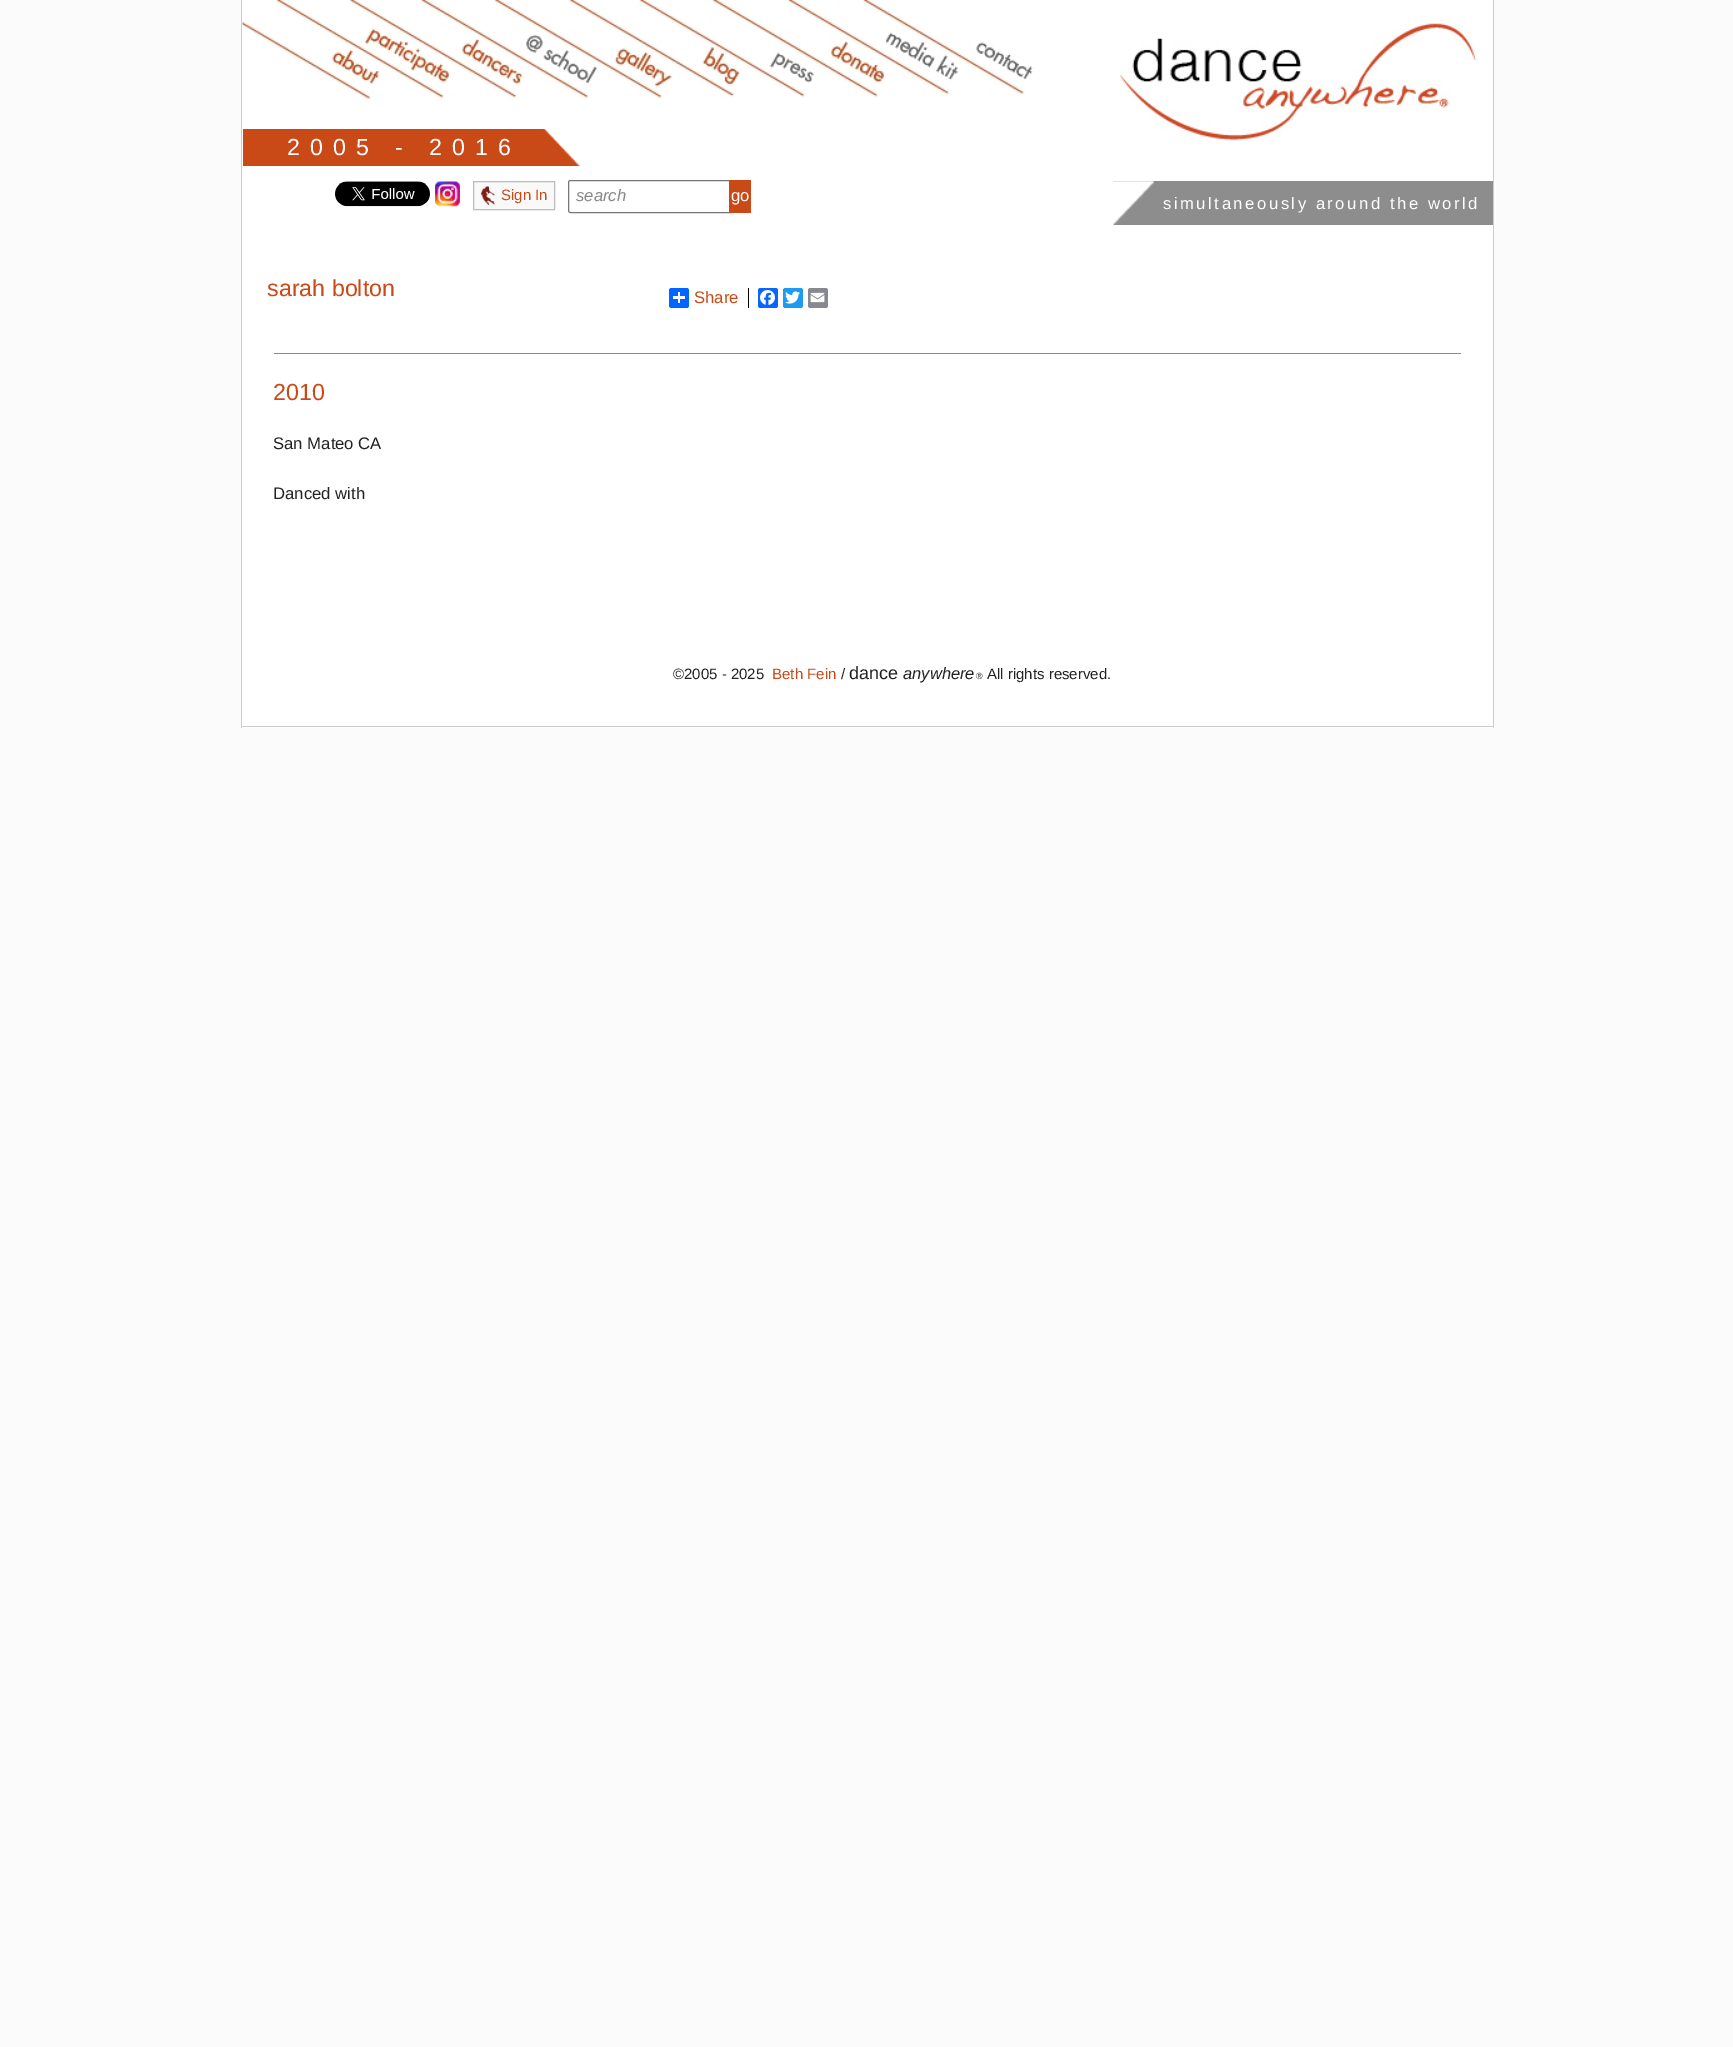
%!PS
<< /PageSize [1733 2047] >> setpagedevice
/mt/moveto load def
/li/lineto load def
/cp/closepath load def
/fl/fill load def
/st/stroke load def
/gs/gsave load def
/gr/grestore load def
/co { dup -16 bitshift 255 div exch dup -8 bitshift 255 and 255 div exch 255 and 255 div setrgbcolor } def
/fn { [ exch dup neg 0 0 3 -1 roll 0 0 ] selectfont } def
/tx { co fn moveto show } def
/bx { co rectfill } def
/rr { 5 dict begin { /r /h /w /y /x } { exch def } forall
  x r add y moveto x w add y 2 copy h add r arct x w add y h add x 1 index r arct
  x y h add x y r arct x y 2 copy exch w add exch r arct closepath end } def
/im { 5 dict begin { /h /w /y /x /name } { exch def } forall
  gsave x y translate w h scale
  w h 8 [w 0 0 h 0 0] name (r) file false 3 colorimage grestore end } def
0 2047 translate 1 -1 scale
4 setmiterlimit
0 0 1733 2047 16#FBFBFB bx
242 0 1251 728 16#FFFFFF bx
1493 0 1 728 16#CCCCCC bx
241 726 1253 1 16#CCCCCC bx
241 0 1 728 16#CCCCCC bx
(media/1.raw) 242 0 791 100 im
(media/2.raw) 1120 23 357 118 im
243 129 337 37 16#C94917 bx
(media/3.raw) 543 129 37 37 im
(media/4.raw) 335 181 95 26 im
(media/5.raw) 435 181 25 26 im
16#F9F9F9 co
473.5 181.5 mt 554.5 181.5 li 554.5 209.5 li 473.5 209.5 li cp gs fl gr
16#BBBBBB co
st
(media/6.raw) 480 186 15 19 im
16#767676 co
568.5 180.5 164 32 2 rr st
729 180 22 33 16#C94917 bx
1113 181 380 44 16#8D8D8D bx
(media/7.raw) 1113 181 41 44 im
16#0166FF co
669 288 20 20 2.5 rr fl
678 292 2 11 16#FFFFFF bx
673 296 12 3 16#FFFFFF bx
748 288 1 20 16#000000 bx
16#0866FF co
758 288 20 20 2.5 rr fl
(media/8.raw) 760 290 15 15 im
16#1D9BF0 co
783 288 20 20 2.5 rr fl
(media/9.raw) 785 291 15 13 im
16#888990 co
808 288 20 20 2.5 rr fl
(media/10.raw) 810 292 15 11 im
274 353 1187 1 16#888888 bx
/LiberationSans-Regular 23.25 fn
16#FFFFFF co
287 155 mt 10 0 (2005 - 2016) ashow
(Sign In) 501 200 /LiberationSans-Regular 15 16#C94917 tx
(search) 576 201 /LiberationSans-Italic 16.7 16#888888 tx
(go) 731 201 /LiberationSans-Regular 16.7 16#FFFFFF tx
1163 209 mt 2.5 0 (simultaneously around the world) ashow
(sarah bolton) 267 296 /LiberationSans-Regular 23.25 16#C94917 tx
(Share) 694 303 /LiberationSans-Regular 16.7 16#C94917 tx
(2010) 273 400 /LiberationSans-Regular 23.25 16#C94917 tx
(San Mateo CA) 273 449 /LiberationSans-Regular 16.7 16#222222 tx
(Danced with) 273 499 /LiberationSans-Regular 16.7 16#222222 tx
(©2005 - 2025) 673 679 /LiberationSans-Regular 15 16#222222 tx
(Beth Fein) 772 679 /LiberationSans-Regular 15 16#C94917 tx
(/) 841 679 /LiberationSans-Regular 15 16#222222 tx
(dance) 849 679 /LiberationSans-Regular 18 16#222222 tx
(anywhere) 903 679 /LiberationSans-Italic 16.5 16#222222 tx
(®) 976 679 /LiberationSans-Regular 9 16#222222 tx
(All rights reserved.) 987 679 /LiberationSans-Regular 15 16#222222 tx
showpage
